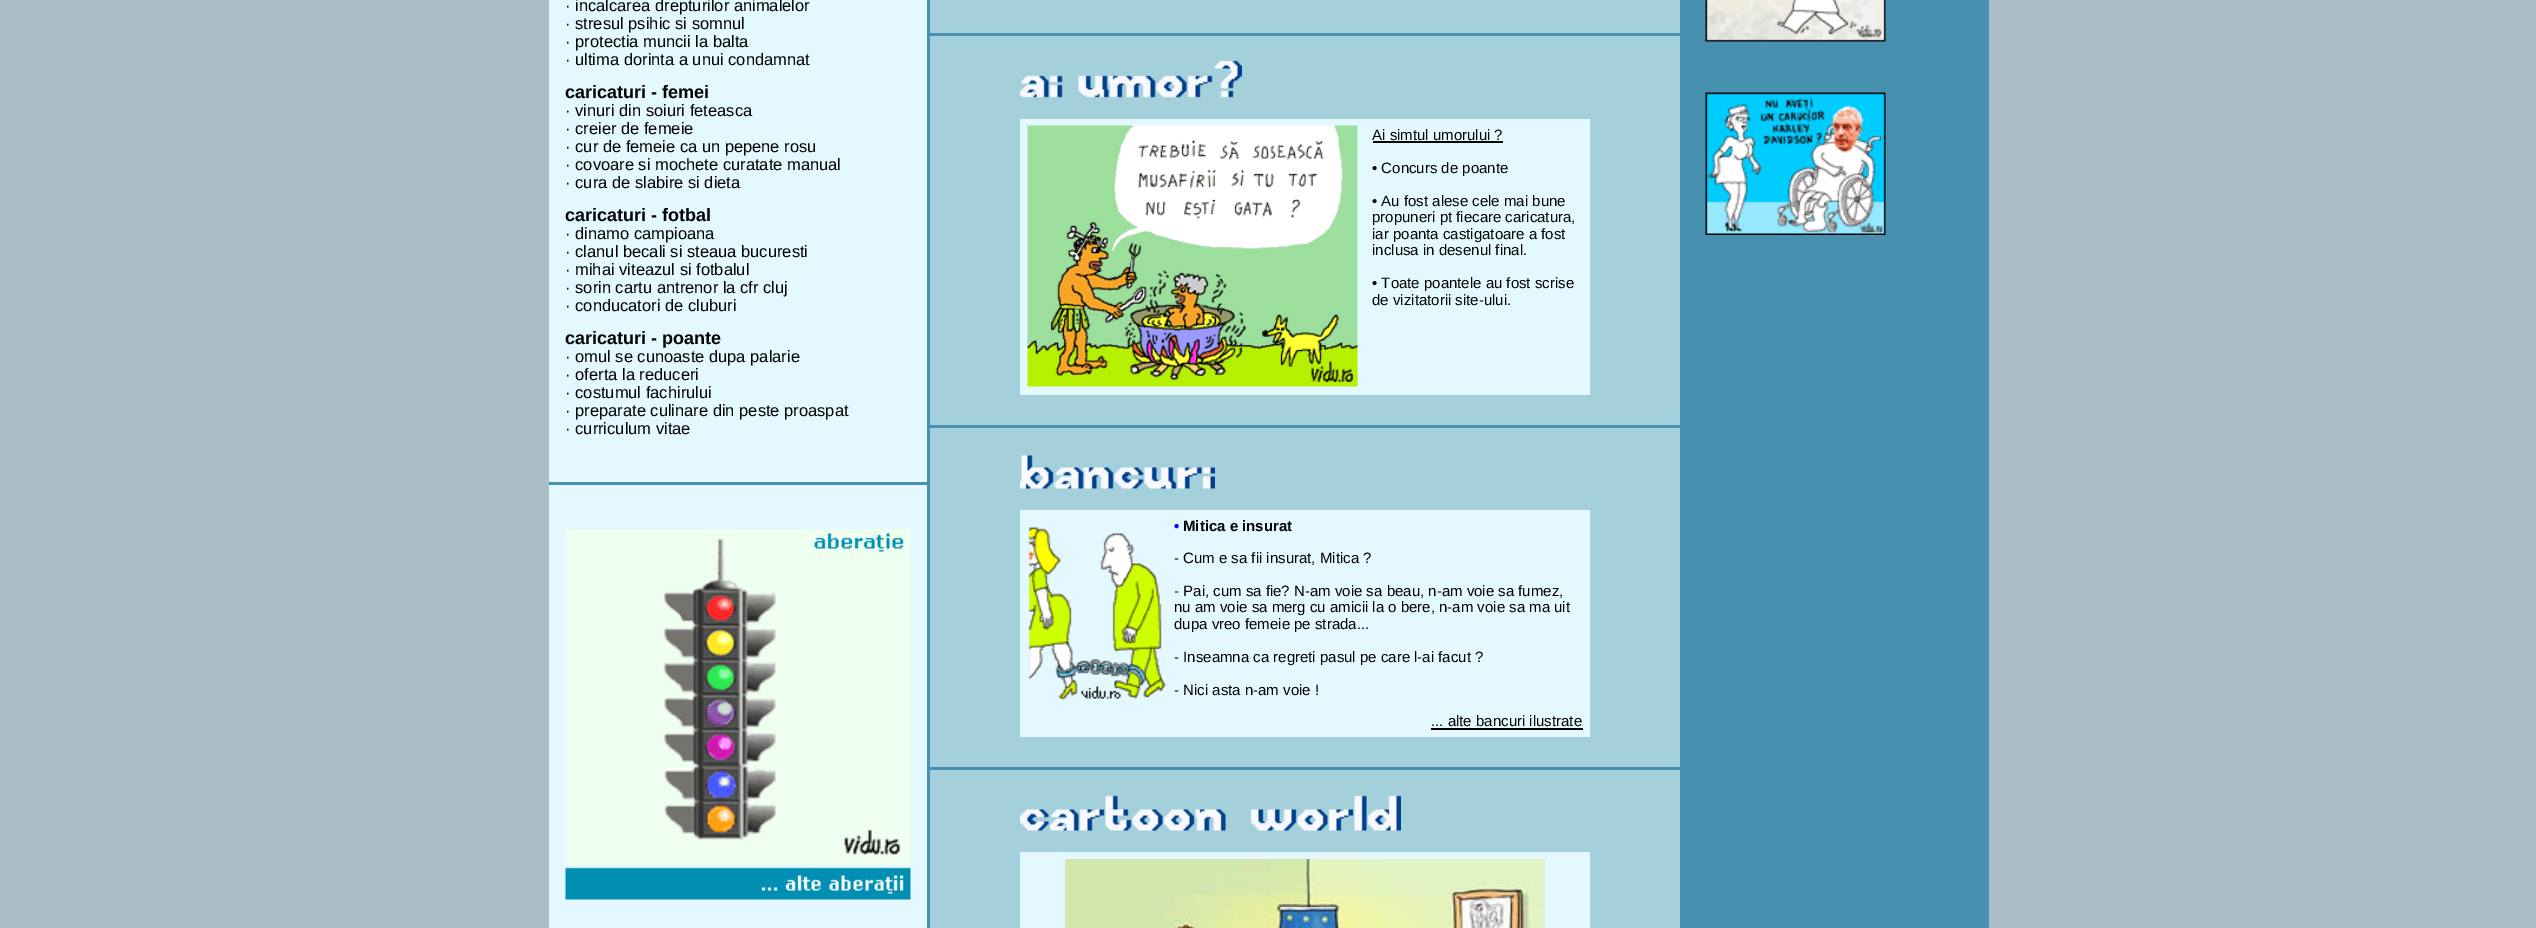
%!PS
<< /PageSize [2536 928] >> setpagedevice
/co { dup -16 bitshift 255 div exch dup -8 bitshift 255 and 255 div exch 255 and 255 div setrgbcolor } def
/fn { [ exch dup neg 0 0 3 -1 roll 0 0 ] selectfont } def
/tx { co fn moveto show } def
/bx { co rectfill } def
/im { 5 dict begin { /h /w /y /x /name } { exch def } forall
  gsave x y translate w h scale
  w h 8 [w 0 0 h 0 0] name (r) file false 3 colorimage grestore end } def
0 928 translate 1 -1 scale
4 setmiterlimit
0 0 2536 928 16#AABCC8 bx
927 0 1062 928 16#4890B0 bx
549 0 378 928 16#E4F8FF bx
549 482 378 3 16#4890B0 bx
(media/1.raw) 565 529 346 371 im
930 0 750 33 16#A4D0DC bx
930 36 750 389 16#A4D0DC bx
(media/2.raw) 1020 60 222 38 im
1020 119 570 276 16#E4F8FF bx
(media/3.raw) 1027 125 331 262 im
1373 141 130 2 16#000000 bx
930 428 750 339 16#A4D0DC bx
(media/4.raw) 1020 455 195 34 im
1020 510 570 227 16#E4F8FF bx
(media/5.raw) 1028 527 138 174 im
1431 728 152 2 16#000000 bx
930 770 750 158 16#A4D0DC bx
(media/6.raw) 1020 795 381 36 im
1020 852 570 76 16#E4F8FF bx
(media/7.raw) 1065 859 480 69 im
(media/8.raw) 1705 0 181 42 im
(media/9.raw) 1705 92 181 143 im
(· incalcarea drepturilor animalelor) 565 11 /LiberationSans-Regular 16.5 16#000000 tx
(· stresul psihic si somnul) 565 29 /LiberationSans-Regular 16.5 16#000000 tx
(· protectia muncii la balta) 565 47 /LiberationSans-Regular 16.5 16#000000 tx
(· ultima dorinta a unui condamnat) 565 65 /LiberationSans-Regular 16.5 16#000000 tx
(caricaturi - femei) 565 98 /LiberationSans-Bold 18 16#000000 tx
(· vinuri din soiuri feteasca) 565 116 /LiberationSans-Regular 16.5 16#000000 tx
(· creier de femeie) 565 134 /LiberationSans-Regular 16.5 16#000000 tx
(· cur de femeie ca un pepene rosu) 565 152 /LiberationSans-Regular 16.5 16#000000 tx
(· covoare si mochete curatate manual) 565 170 /LiberationSans-Regular 16.5 16#000000 tx
(· cura de slabire si dieta) 565 188 /LiberationSans-Regular 16.5 16#000000 tx
(caricaturi - fotbal) 565 221 /LiberationSans-Bold 18 16#000000 tx
(· dinamo campioana) 565 239 /LiberationSans-Regular 16.5 16#000000 tx
(· clanul becali si steaua bucuresti) 565 257 /LiberationSans-Regular 16.5 16#000000 tx
(· mihai viteazul si fotbalul) 565 275 /LiberationSans-Regular 16.5 16#000000 tx
(· sorin cartu antrenor la cfr cluj) 565 293 /LiberationSans-Regular 16.5 16#000000 tx
(· conducatori de cluburi) 565 311 /LiberationSans-Regular 16.5 16#000000 tx
(caricaturi - poante) 565 344 /LiberationSans-Bold 18 16#000000 tx
(· omul se cunoaste dupa palarie) 565 362 /LiberationSans-Regular 16.5 16#000000 tx
(· oferta la reduceri) 565 380 /LiberationSans-Regular 16.5 16#000000 tx
(· costumul fachirului) 565 398 /LiberationSans-Regular 16.5 16#000000 tx
(· preparate culinare din peste proaspat) 565 416 /LiberationSans-Regular 16.5 16#000000 tx
(· curriculum vitae) 565 434 /LiberationSans-Regular 16.5 16#000000 tx
(Ai simtul umorului ?) 1372 140 /LiberationSans-Regular 15 16#000000 tx
(• Concurs de poante) 1372 173 /LiberationSans-Regular 15 16#000000 tx
(• Au fost alese cele mai bune) 1372 206 /LiberationSans-Regular 15 16#000000 tx
(propuneri pt fiecare caricatura,) 1372 222 /LiberationSans-Regular 15 16#000000 tx
(iar poanta castigatoare a fost) 1372 239 /LiberationSans-Regular 15 16#000000 tx
(inclusa in desenul final.) 1372 255 /LiberationSans-Regular 15 16#000000 tx
(• Toate poantele au fost scrise) 1372 288 /LiberationSans-Regular 15 16#000000 tx
(de vizitatorii site-ului.) 1372 305 /LiberationSans-Regular 15 16#000000 tx
(•) 1174 531 /LiberationSans-Bold 15 16#0000FF tx
(Mitica e insurat) 1183 531 /LiberationSans-Bold 15 16#000000 tx
(- Cum e sa fii insurat, Mitica ?) 1174 563 /LiberationSans-Regular 15 16#000000 tx
(- Pai, cum sa fie? N-am voie sa beau, n-am voie sa fumez,) 1174 596 /LiberationSans-Regular 15 16#000000 tx
(nu am voie sa merg cu amicii la o bere, n-am voie sa ma uit) 1174 612 /LiberationSans-Regular 15 16#000000 tx
(dupa vreo femeie pe strada...) 1174 629 /LiberationSans-Regular 15 16#000000 tx
(- Inseamna ca regreti pasul pe care l-ai facut ?) 1174 662 /LiberationSans-Regular 15 16#000000 tx
(- Nici asta n-am voie !) 1174 695 /LiberationSans-Regular 15 16#000000 tx
(... alte bancuri ilustrate) 1431 726 /LiberationSans-Regular 15 16#000000 tx
showpage
